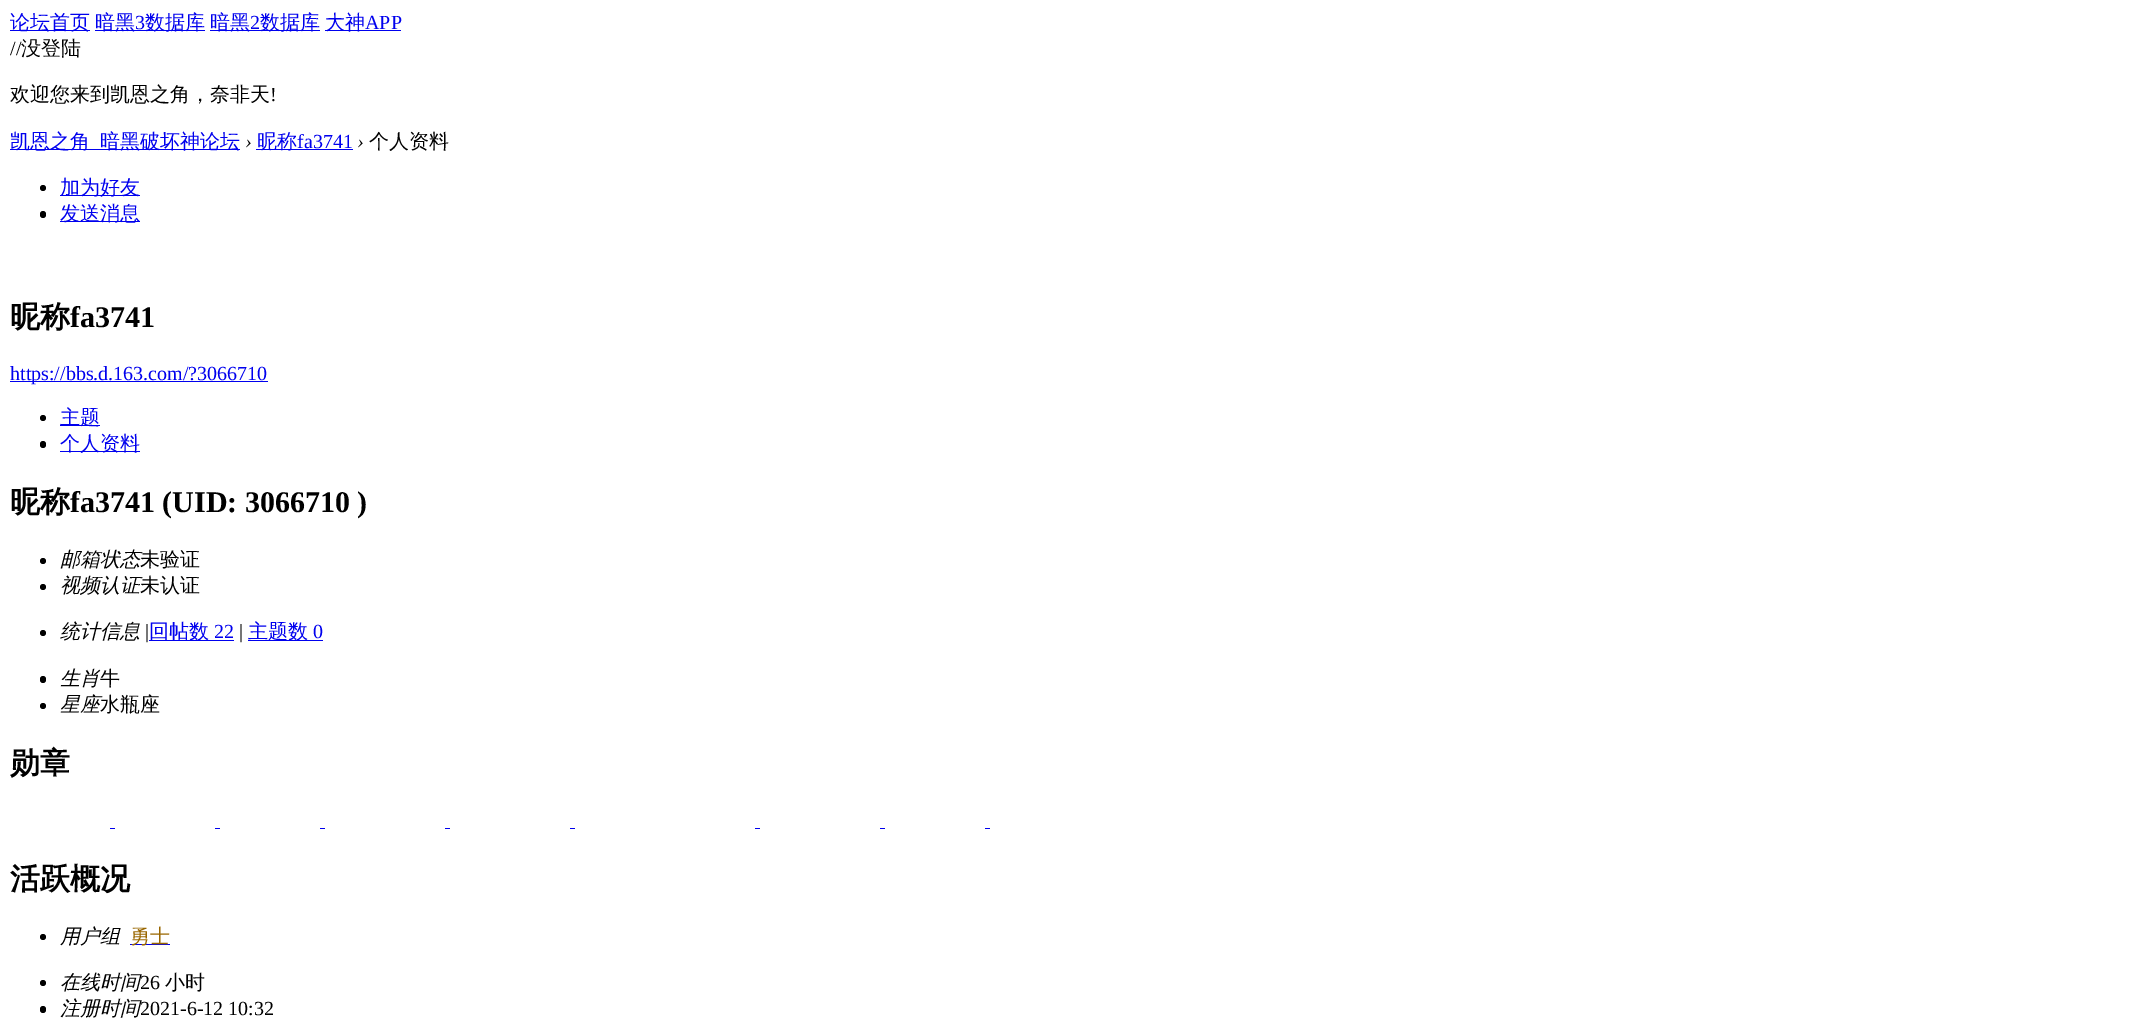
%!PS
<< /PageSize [2144 1031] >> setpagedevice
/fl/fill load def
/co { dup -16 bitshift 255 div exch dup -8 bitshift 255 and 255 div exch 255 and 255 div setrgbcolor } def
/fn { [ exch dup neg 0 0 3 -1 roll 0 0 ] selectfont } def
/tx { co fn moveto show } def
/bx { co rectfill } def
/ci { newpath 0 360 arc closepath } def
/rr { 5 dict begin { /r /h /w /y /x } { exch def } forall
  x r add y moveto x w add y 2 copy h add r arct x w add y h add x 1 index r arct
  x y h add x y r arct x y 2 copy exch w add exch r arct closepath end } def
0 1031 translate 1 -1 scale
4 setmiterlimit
0 0 2144 1031 16#FFFFFF bx
10 30 80 1 16#0000EE bx
95 30 110 1 16#0000EE bx
210 30 110 1 16#0000EE bx
325 30 76 1 16#0000EE bx
10 149 230 1 16#0000EE bx
256 149 97 1 16#0000EE bx
16#000000 co
43 188 3 ci fl
60 195 80 1 16#0000EE bx
16#000000 co
40 211 6 7 3 rr fl
60 221 80 1 16#0000EE bx
10 381 258 1 16#0000EE bx
16#000000 co
43 418 3 ci fl
60 425 40 1 16#0000EE bx
16#000000 co
40 441 6 7 3 rr fl
60 451 80 1 16#0000EE bx
16#000000 co
43 561 3 ci fl
43 587 3 ci fl
43 633 3 ci fl
149 640 85 1 16#0000EE bx
248 640 75 1 16#0000EE bx
16#000000 co
40 676 6 7 3 rr fl
43 706 3 ci fl
110 828 5 1 16#0000EE bx
215 828 5 1 16#0000EE bx
320 828 5 1 16#0000EE bx
445 828 5 1 16#0000EE bx
570 828 5 1 16#0000EE bx
755 828 5 1 16#0000EE bx
880 828 5 1 16#0000EE bx
985 828 5 1 16#0000EE bx
16#000000 co
43 937 3 ci fl
130 944 40 1 16#0000EE bx
16#000000 co
43 983 3 ci fl
40 1006 6 7 3 rr fl
(论坛首页) 10 29 /WenQuanYiZenHei-Medium 20 16#0000EE tx
(暗黑) 95 29 /WenQuanYiZenHei-Medium 20 16#0000EE tx
(3) 135 29 /LiberationSerif-Regular 20 16#0000EE tx
(数据库) 145 29 /WenQuanYiZenHei-Medium 20 16#0000EE tx
(暗黑) 210 29 /WenQuanYiZenHei-Medium 20 16#0000EE tx
(2) 250 29 /LiberationSerif-Regular 20 16#0000EE tx
(数据库) 260 29 /WenQuanYiZenHei-Medium 20 16#0000EE tx
(大神) 325 29 /WenQuanYiZenHei-Medium 20 16#0000EE tx
(APP) 365 29 /LiberationSerif-Regular 20 16#0000EE tx
(//) 10 55 /LiberationSerif-Regular 20 16#000000 tx
(没登陆) 21 55 /WenQuanYiZenHei-Medium 20 16#000000 tx
(欢迎您来到凯恩之角，奈非天) 10 101 /WenQuanYiZenHei-Medium 20 16#000000 tx
(!) 270 101 /LiberationSerif-Regular 20 16#000000 tx
(凯恩之角) 10 148 /WenQuanYiZenHei-Medium 20 16#0000EE tx
(暗黑破坏神论坛) 100 148 /WenQuanYiZenHei-Medium 20 16#0000EE tx
(›) 245 148 /LiberationSerif-Italic 20 16#000000 tx
(昵称) 257 148 /WenQuanYiZenHei-Medium 20 16#0000EE tx
(fa3741) 297 148 /LiberationSerif-Regular 20 16#0000EE tx
(›) 357 148 /LiberationSerif-Italic 20 16#000000 tx
(个人资料) 369 148 /WenQuanYiZenHei-Medium 20 16#000000 tx
(加为好友) 60 194 /WenQuanYiZenHei-Medium 20 16#0000EE tx
(发送消息) 60 220 /WenQuanYiZenHei-Medium 20 16#0000EE tx
(昵称) 10 327 /WenQuanYiZenHei-Bold 30 16#000000 tx
(fa3741) 70 327 /LiberationSerif-Bold 30 16#000000 tx
(https://bbs.d.163.com/?3066710) 10 380 /LiberationSerif-Regular 20 16#0000EE tx
(主题) 60 424 /WenQuanYiZenHei-Medium 20 16#0000EE tx
(个人资料) 60 450 /WenQuanYiZenHei-Medium 20 16#0000EE tx
(昵称) 10 512 /WenQuanYiZenHei-Bold 30 16#000000 tx
(fa3741 \(UID: 3066710 \)) 70 512 /LiberationSerif-Bold 30 16#000000 tx
(邮箱状态) 60 566 /WenQuanYiZenHei-MediumItalic 20 16#000000 tx
(未验证) 140 566 /WenQuanYiZenHei-Medium 20 16#000000 tx
(视频认证) 60 592 /WenQuanYiZenHei-MediumItalic 20 16#000000 tx
(未认证) 140 592 /WenQuanYiZenHei-Medium 20 16#000000 tx
(统计信息) 60 638 /WenQuanYiZenHei-MediumItalic 20 16#000000 tx
(|) 145 638 /LiberationSerif-Regular 20 16#000000 tx
(回帖数) 149 638 /WenQuanYiZenHei-Medium 20 16#0000EE tx
(22) 214 638 /LiberationSerif-Regular 20 16#0000EE tx
(|) 239 638 /LiberationSerif-Regular 20 16#000000 tx
(主题数) 248 638 /WenQuanYiZenHei-Medium 20 16#0000EE tx
(0) 313 638 /LiberationSerif-Regular 20 16#0000EE tx
(生肖) 60 685 /WenQuanYiZenHei-MediumItalic 20 16#000000 tx
(牛) 100 685 /WenQuanYiZenHei-Medium 20 16#000000 tx
(星座) 60 711 /WenQuanYiZenHei-MediumItalic 20 16#000000 tx
(水瓶座) 100 711 /WenQuanYiZenHei-Medium 20 16#000000 tx
(勋章) 10 773 /WenQuanYiZenHei-Bold 30 16#000000 tx
(活跃概况) 10 889 /WenQuanYiZenHei-Bold 30 16#000000 tx
(用户组) 60 943 /WenQuanYiZenHei-MediumItalic 20 16#000000 tx
(勇士) 130 943 /WenQuanYiZenHei-Medium 20 16#996600 tx
(在线时间) 60 989 /WenQuanYiZenHei-MediumItalic 20 16#000000 tx
(26) 140 989 /LiberationSerif-Regular 20 16#000000 tx
(小时) 165 989 /WenQuanYiZenHei-Medium 20 16#000000 tx
(注册时间) 60 1015 /WenQuanYiZenHei-MediumItalic 20 16#000000 tx
(2021-6-12 10:32) 140 1015 /LiberationSerif-Regular 20 16#000000 tx
showpage
